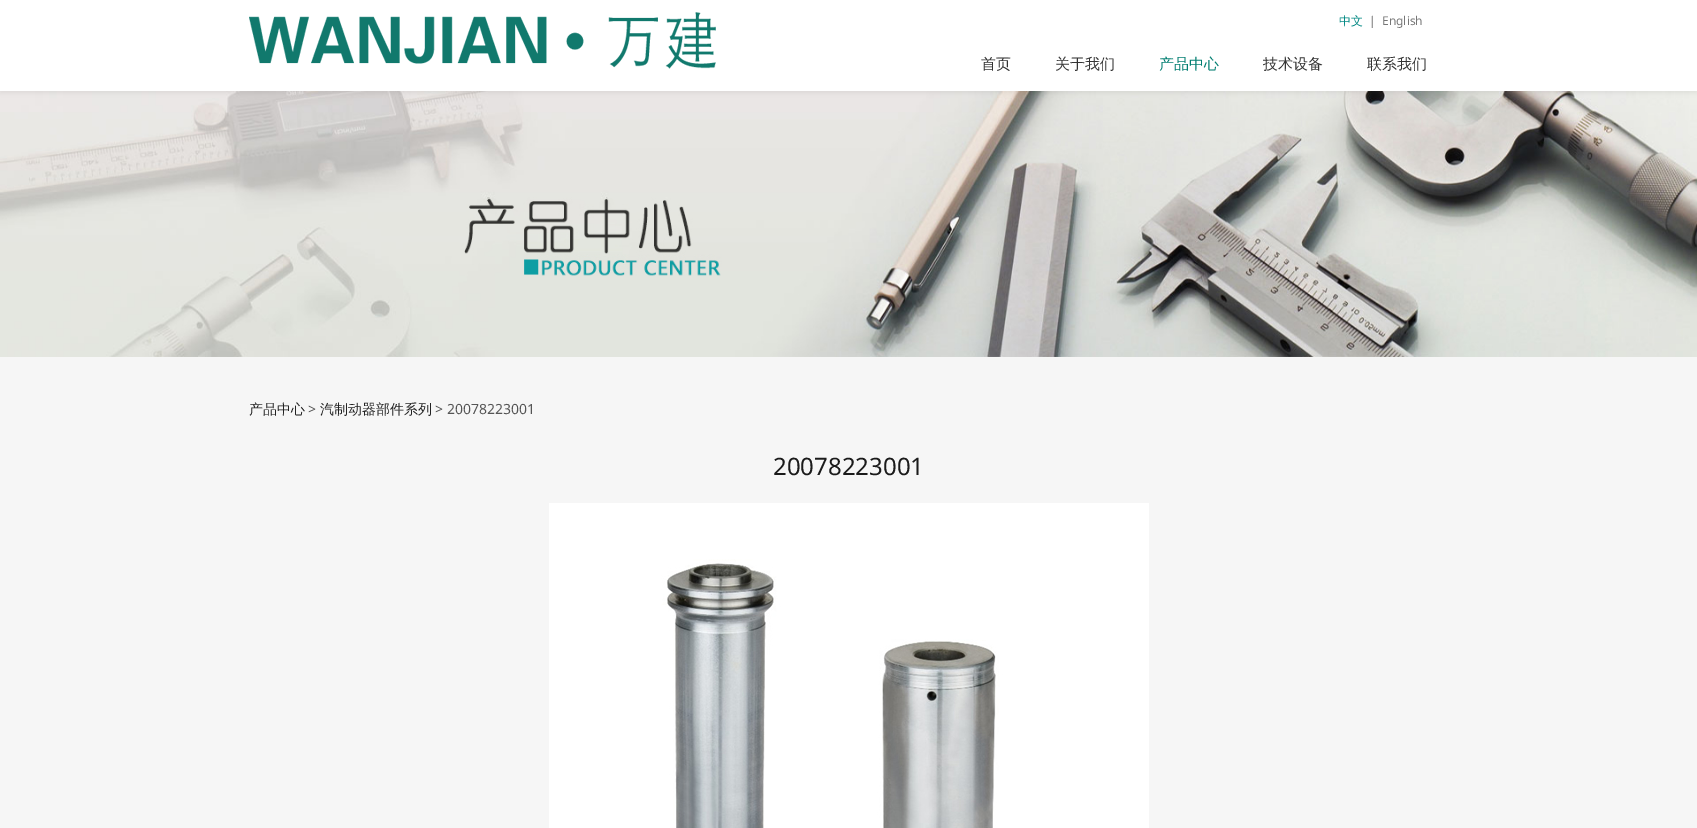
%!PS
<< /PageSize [1697 828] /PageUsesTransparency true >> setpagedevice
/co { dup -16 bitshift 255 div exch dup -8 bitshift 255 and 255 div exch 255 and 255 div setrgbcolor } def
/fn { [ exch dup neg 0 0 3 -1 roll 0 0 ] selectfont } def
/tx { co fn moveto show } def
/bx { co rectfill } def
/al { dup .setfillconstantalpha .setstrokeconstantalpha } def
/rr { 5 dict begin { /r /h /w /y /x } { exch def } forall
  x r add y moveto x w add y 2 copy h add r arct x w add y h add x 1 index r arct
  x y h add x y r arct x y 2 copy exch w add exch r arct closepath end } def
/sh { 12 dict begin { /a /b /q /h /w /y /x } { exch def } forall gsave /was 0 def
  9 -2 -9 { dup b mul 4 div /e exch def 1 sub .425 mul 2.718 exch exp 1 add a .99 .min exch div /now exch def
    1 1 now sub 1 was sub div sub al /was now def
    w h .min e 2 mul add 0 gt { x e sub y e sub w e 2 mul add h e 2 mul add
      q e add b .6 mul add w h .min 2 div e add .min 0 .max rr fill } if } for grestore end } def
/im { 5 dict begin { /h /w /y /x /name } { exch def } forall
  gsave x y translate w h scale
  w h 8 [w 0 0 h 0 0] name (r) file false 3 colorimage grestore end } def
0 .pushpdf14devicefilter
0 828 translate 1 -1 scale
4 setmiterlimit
0 0 1697 828 16#F6F6F6 bx
(media/2.raw) 0 91 1697 266 im
16#000000 co
0 2 1697 91 0 2.5 .05 sh
0 0 1697 91 16#FFFFFF bx
(media/1.raw) 249 12 467 57 im
(media/3.raw) 549 503 600 325 im
(中文) 1339 25 /WenQuanYiZenHei-Medium 12 16#068A85 tx
(|) 1369 25 /NotoSans-Regular 12 16#777777 tx
(English) 1382 25 /NotoSans-Regular 12 16#777777 tx
(首页) 981 69 /WenQuanYiZenHei-Medium 15 16#333333 tx
(关于我们) 1055 69 /WenQuanYiZenHei-Medium 15 16#333333 tx
(产品中心) 1159 69 /WenQuanYiZenHei-Medium 15 16#017E71 tx
(技术设备) 1263 69 /WenQuanYiZenHei-Medium 15 16#333333 tx
(联系我们) 1367 69 /WenQuanYiZenHei-Medium 15 16#333333 tx
(产品中心) 249 414 /WenQuanYiZenHei-Medium 14 16#222222 tx
(>) 308 414 /NotoSans-Regular 14 16#555555 tx
(汽制动器部件系列) 320 414 /WenQuanYiZenHei-Medium 14 16#222222 tx
(> 20078223001) 435 414 /NotoSans-Regular 14 16#555555 tx
(20078223001) 773 475 /NotoSans-Regular 24 16#1B1B1B tx
.poppdf14devicefilter showpage
